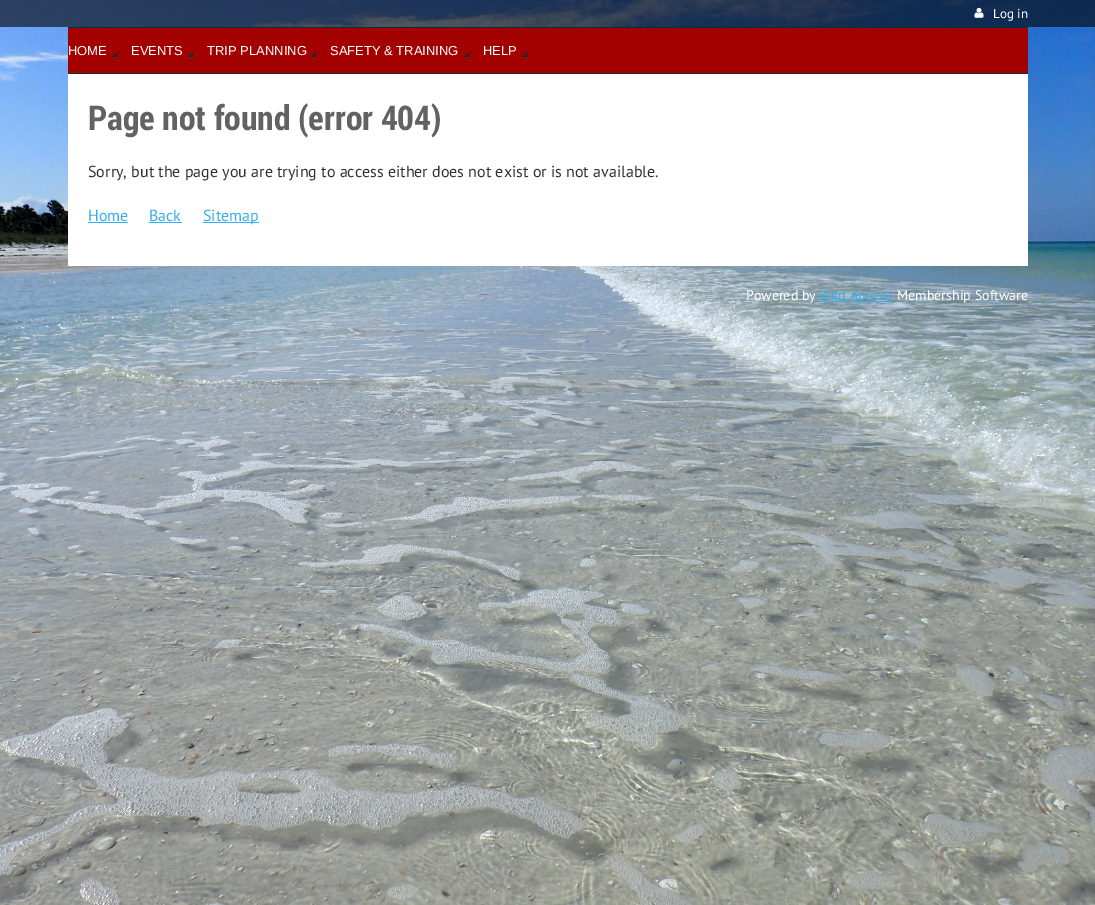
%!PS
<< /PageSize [1095 905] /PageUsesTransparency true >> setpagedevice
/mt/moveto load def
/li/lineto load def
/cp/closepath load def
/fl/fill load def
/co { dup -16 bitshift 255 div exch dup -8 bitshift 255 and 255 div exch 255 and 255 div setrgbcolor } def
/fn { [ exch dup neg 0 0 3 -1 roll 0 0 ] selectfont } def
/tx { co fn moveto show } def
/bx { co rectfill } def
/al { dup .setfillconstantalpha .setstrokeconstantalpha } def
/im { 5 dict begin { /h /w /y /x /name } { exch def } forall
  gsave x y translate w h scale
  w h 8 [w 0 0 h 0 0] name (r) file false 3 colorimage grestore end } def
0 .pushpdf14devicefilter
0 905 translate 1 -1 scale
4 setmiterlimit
0 0 1095 905 16#FFFFFF bx
(media/1.raw) 0 0 1095 905 im
0.6 al
0 0 1095 27 16#000000 bx
1 al
(media/2.raw) 974 7 10 11 im
68 27 960 1 16#033333 bx
68 73 960 1 16#033333 bx
68 28 960 45 16#A30000 bx
16#033333 co
117 57 mt 112 57 li 117 52 li cp fl
193 57 mt 188 57 li 193 52 li cp fl
316 57 mt 311 57 li 316 52 li cp fl
469 57 mt 464 57 li 469 52 li cp fl
527 57 mt 522 57 li 527 52 li cp fl
68 74 960 192 16#FFFFFF bx
88 222 40 1 16#36AFF0 bx
149 222 33 1 16#36AFF0 bx
203 222 56 1 16#36AFF0 bx
819 301 74 1 16#36AFF0 bx
(Log in) 993 18 /PTSans-Regular 13 16#FFFFFF tx
(HOME) 68 55 /LiberationSans-Regular 13 16#FFFFFF tx
(EVENTS) 131 55 /LiberationSans-Regular 13 16#FFFFFF tx
(TRIP PLANNING) 207 55 /LiberationSans-Regular 13 16#FFFFFF tx
(SAFETY & TRAINING) 330 55 /LiberationSans-Regular 13 16#FFFFFF tx
(HELP) 483 55 /LiberationSans-Regular 13 16#FFFFFF tx
(Page not found \(error 404\)) 88 130 /RobotoCondensed-Bold 34 16#626262 tx
(Sorry, but the page you are trying to access either does not exist or is not available.) 88 177 /PTSans-Regular 16 16#333333 tx
(Home) 88 221 /PTSans-Regular 16 16#36AFF0 tx
(Back) 149 221 /PTSans-Regular 16 16#36AFF0 tx
(Sitemap) 203 221 /PTSans-Regular 16 16#36AFF0 tx
(Powered by) 746 300 /PTSans-Regular 14 16#FFFFFF tx
(Wild Apricot) 819 300 /PTSans-Regular 14 16#36AFF0 tx
(Membership Software) 897 300 /PTSans-Regular 14 16#FFFFFF tx
.poppdf14devicefilter showpage
